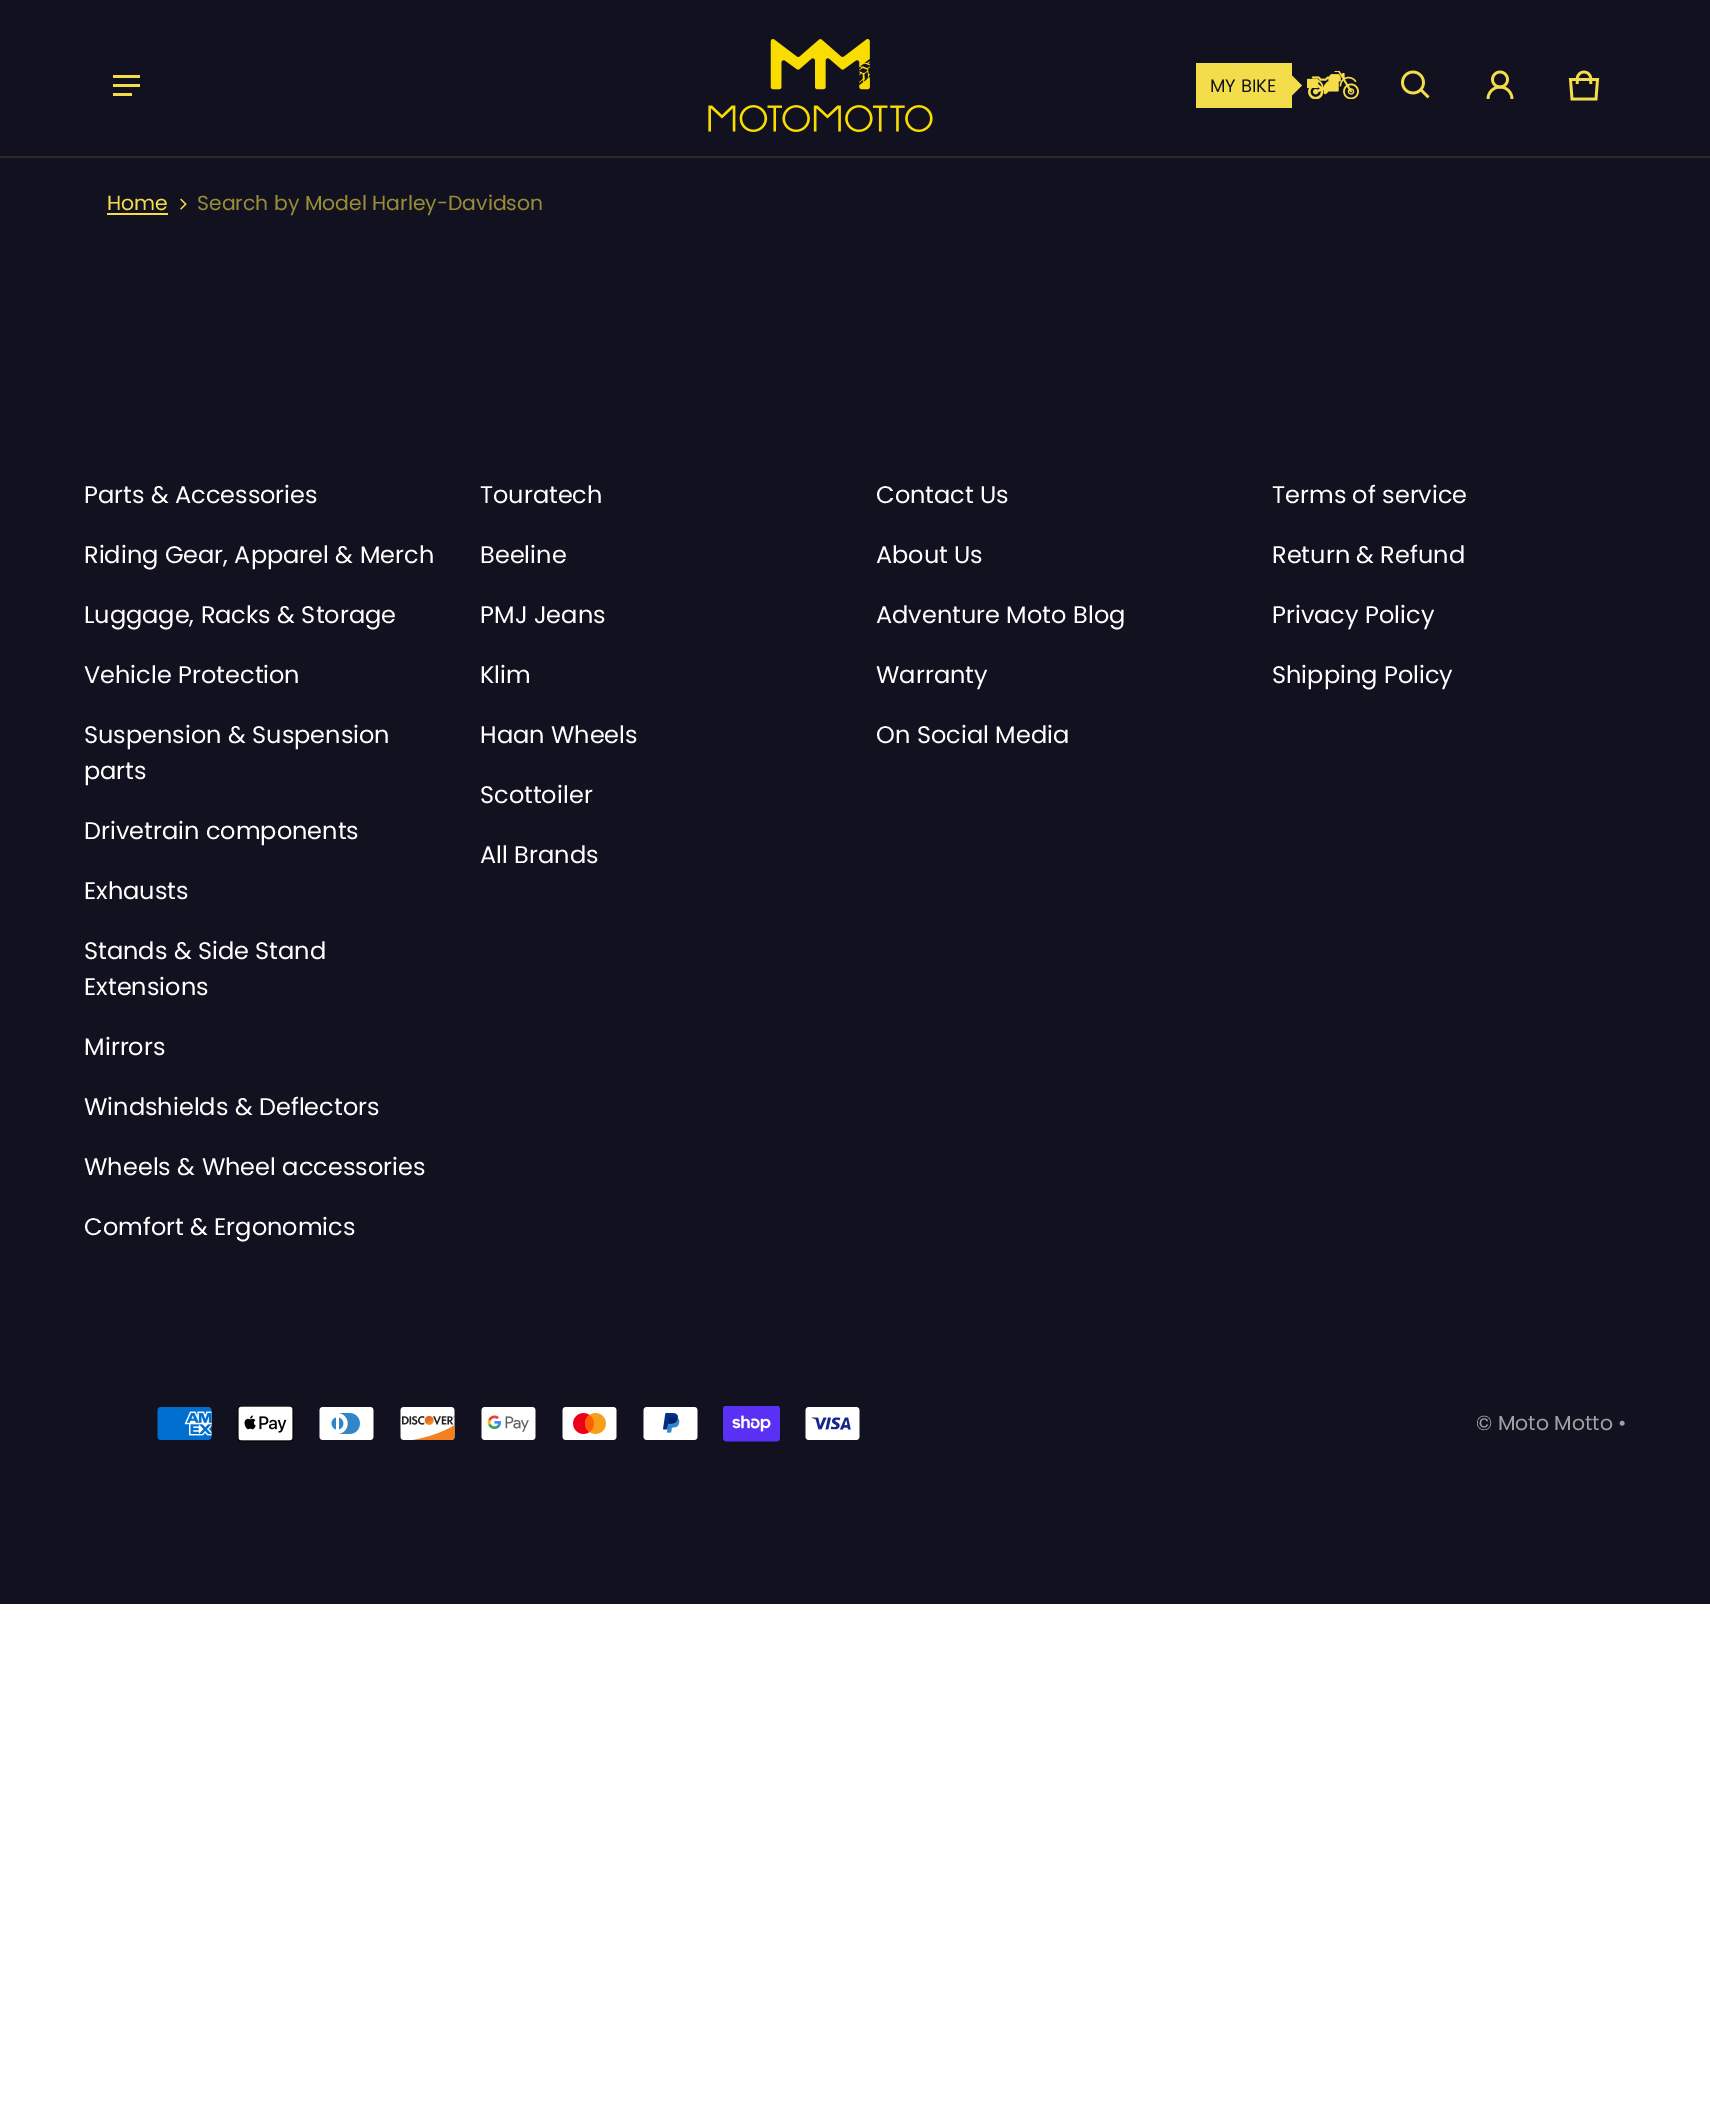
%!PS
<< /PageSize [1710 2104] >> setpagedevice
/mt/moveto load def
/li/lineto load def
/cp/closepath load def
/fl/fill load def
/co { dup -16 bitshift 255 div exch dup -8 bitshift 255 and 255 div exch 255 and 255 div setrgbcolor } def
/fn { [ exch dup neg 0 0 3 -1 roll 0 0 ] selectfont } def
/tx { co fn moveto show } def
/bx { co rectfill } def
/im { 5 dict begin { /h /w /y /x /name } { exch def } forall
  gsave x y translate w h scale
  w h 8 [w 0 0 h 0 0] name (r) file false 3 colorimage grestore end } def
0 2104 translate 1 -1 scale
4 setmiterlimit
0 0 1710 2104 16#FFFFFF bx
0 0 1710 156 16#11111F bx
0 156 1710 2 16#2C2924 bx
113 75 27 3 16#F5DD4A bx
113 84 27 3 16#F5DD4A bx
113 93 19 3 16#F5DD4A bx
(media/1.raw) 708 39 225 93 im
1196 63 96 45 16#F4DD4A bx
1291.5 75 mt 1302 85.5 li 1291.5 96 li 1281 85.5 li cp fl
(media/2.raw) 1307 71 52 28 im
(media/3.raw) 1401 70 29 29 im
(media/4.raw) 1486 70 28 29 im
(media/5.raw) 1568 70 32 31 im
0 158 1710 1446 16#11111F bx
107 213 61 2 16#F5DD4A bx
(media/6.raw) 180 198 7 12 im
(media/7.raw) 157 1407 55 33 im
(media/8.raw) 237 1406 57 36 im
(media/9.raw) 319 1407 55 33 im
(media/10.raw) 400 1407 55 33 im
(media/11.raw) 481 1407 55 33 im
(media/12.raw) 562 1407 55 33 im
(media/13.raw) 643 1407 55 33 im
(media/14.raw) 723 1406 57 36 im
(media/15.raw) 805 1407 55 33 im
(MY BIKE) 1210 92 /Poppins-Regular 18 16#11111E tx
(Home) 107 210 /Poppins-Regular 20.4 16#F5DD4A tx
(Search by Model Harley-Davidson) 197 210 /Poppins-Regular 20.4 16#9A8B39 tx
(Parts & Accessories) 84 503 /Poppins-Regular 24 16#FFFFFF tx
(Riding Gear, Apparel & Merch) 84 563 /Poppins-Regular 24 16#FFFFFF tx
(Luggage, Racks & Storage) 84 623 /Poppins-Regular 24 16#FFFFFF tx
(Vehicle Protection) 84 683 /Poppins-Regular 24 16#FFFFFF tx
(Suspension & Suspension) 84 743 /Poppins-Regular 24 16#FFFFFF tx
(parts) 84 779 /Poppins-Regular 24 16#FFFFFF tx
(Drivetrain components) 84 839 /Poppins-Regular 24 16#FFFFFF tx
(Exhausts) 84 899 /Poppins-Regular 24 16#FFFFFF tx
(Stands & Side Stand) 84 959 /Poppins-Regular 24 16#FFFFFF tx
(Extensions) 84 995 /Poppins-Regular 24 16#FFFFFF tx
(Mirrors) 84 1055 /Poppins-Regular 24 16#FFFFFF tx
(Windshields & Deflectors) 84 1115 /Poppins-Regular 24 16#FFFFFF tx
(Wheels & Wheel accessories) 84 1175 /Poppins-Regular 24 16#FFFFFF tx
(Comfort & Ergonomics) 84 1235 /Poppins-Regular 24 16#FFFFFF tx
(Touratech) 480 503 /Poppins-Regular 24 16#FFFFFF tx
(Beeline) 480 563 /Poppins-Regular 24 16#FFFFFF tx
(PMJ Jeans) 480 623 /Poppins-Regular 24 16#FFFFFF tx
(Klim) 480 683 /Poppins-Regular 24 16#FFFFFF tx
(Haan Wheels) 480 743 /Poppins-Regular 24 16#FFFFFF tx
(Scottoiler) 480 803 /Poppins-Regular 24 16#FFFFFF tx
(All Brands) 480 863 /Poppins-Regular 24 16#FFFFFF tx
(Contact Us) 876 503 /Poppins-Regular 24 16#FFFFFF tx
(About Us) 876 563 /Poppins-Regular 24 16#FFFFFF tx
(Adventure Moto Blog) 876 623 /Poppins-Regular 24 16#FFFFFF tx
(Warranty) 876 683 /Poppins-Regular 24 16#FFFFFF tx
(On Social Media) 876 743 /Poppins-Regular 24 16#FFFFFF tx
(Terms of service) 1272 503 /Poppins-Regular 24 16#FFFFFF tx
(Return & Refund) 1272 563 /Poppins-Regular 24 16#FFFFFF tx
(Privacy Policy) 1272 623 /Poppins-Regular 24 16#FFFFFF tx
(Shipping Policy) 1272 683 /Poppins-Regular 24 16#FFFFFF tx
(© Moto Motto •) 1476 1430 /Poppins-Regular 20.4 16#A0A0A5 tx
showpage
